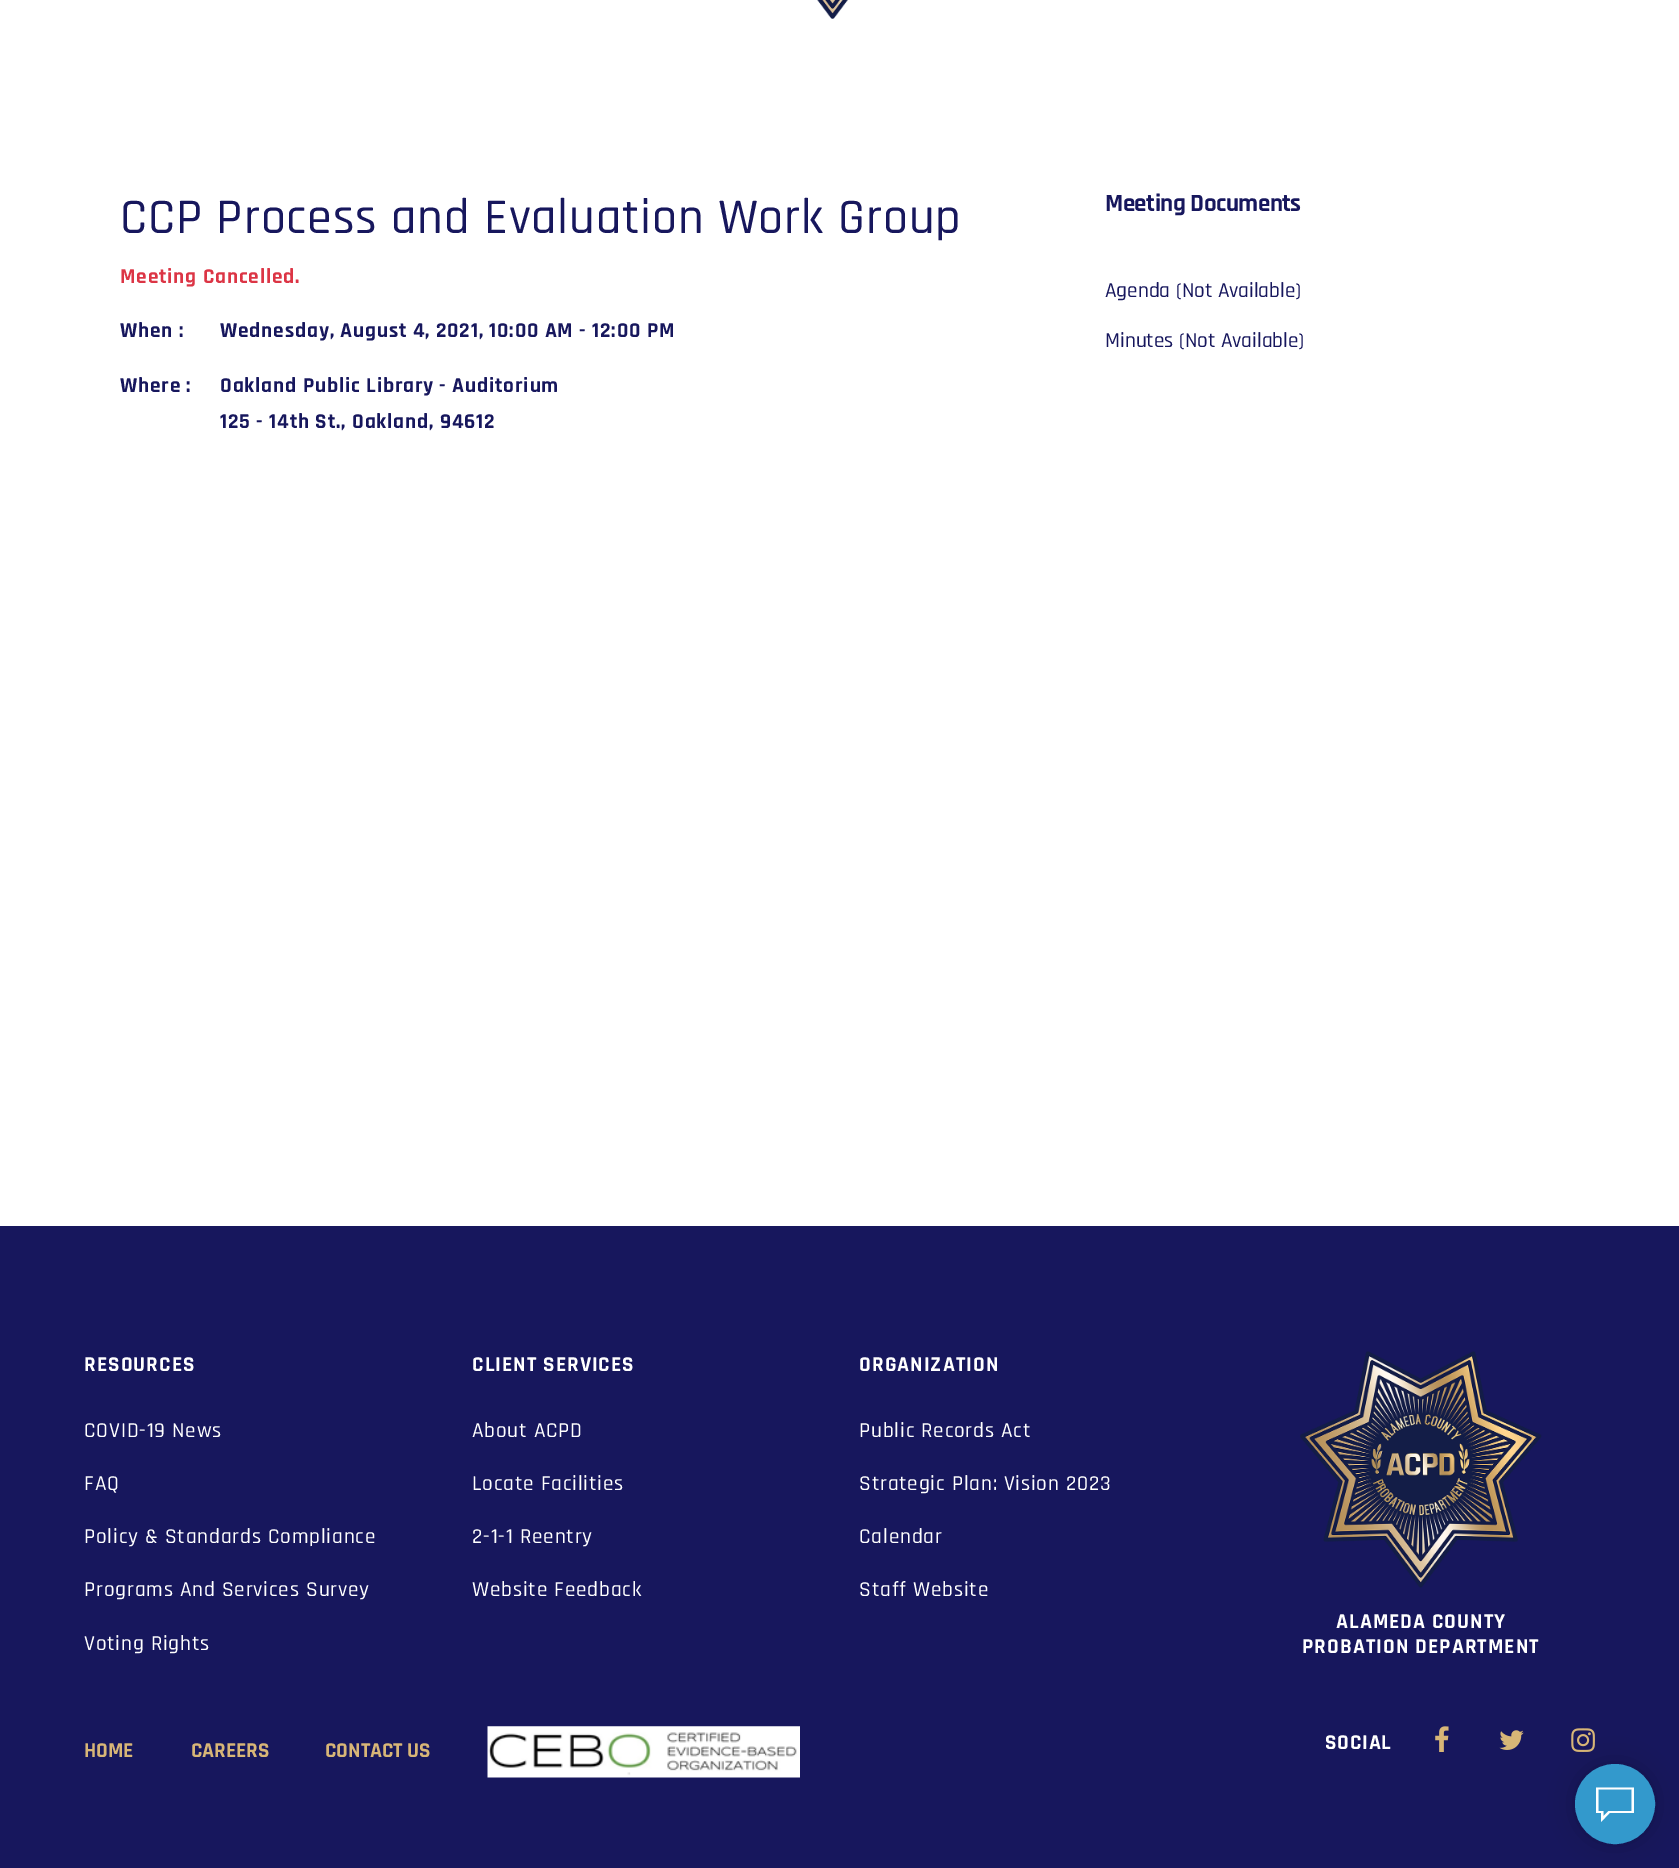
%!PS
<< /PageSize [1679 1868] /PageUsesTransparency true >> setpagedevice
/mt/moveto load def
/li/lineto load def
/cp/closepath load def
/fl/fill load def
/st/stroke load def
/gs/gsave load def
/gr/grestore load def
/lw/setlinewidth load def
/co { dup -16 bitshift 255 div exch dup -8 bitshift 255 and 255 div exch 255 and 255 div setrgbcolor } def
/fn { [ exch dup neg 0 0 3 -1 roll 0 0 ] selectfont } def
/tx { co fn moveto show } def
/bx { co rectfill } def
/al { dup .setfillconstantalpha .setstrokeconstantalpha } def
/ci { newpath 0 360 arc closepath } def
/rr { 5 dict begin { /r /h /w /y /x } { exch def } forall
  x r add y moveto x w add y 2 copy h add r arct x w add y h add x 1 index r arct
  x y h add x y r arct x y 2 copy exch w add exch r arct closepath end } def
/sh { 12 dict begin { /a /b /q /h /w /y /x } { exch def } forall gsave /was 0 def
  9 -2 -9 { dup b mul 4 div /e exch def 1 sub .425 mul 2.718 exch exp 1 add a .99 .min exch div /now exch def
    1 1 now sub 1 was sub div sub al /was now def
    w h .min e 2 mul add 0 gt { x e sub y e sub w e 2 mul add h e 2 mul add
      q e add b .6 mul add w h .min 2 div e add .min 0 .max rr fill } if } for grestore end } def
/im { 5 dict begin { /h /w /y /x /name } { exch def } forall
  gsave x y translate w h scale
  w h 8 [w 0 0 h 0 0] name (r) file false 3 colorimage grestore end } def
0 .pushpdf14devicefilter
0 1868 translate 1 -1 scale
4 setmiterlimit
0 0 1679 1868 16#FFFFFF bx
(media/1.raw) 817 0 31 19 im
0 1226 1679 642 16#17175D bx
(media/2.raw) 1300 1351 242 237 im
(media/3.raw) 487 1726 313 52 im
(media/4.raw) 1435 1726 14 26 im
(media/5.raw) 1499 1730 25 20 im
(media/6.raw) 1571 1728 24 24 im
16#000000 co
1575 1764 80 80 40 12.5 .2 sh
16#3399CC co
1615 1804 38.5 ci gs fl gr
3 lw
st
16#FFFFFF co
1596 1787.5 mt 1634 1787.5 li 1634 1813 li 1609.5 1813 li 1601 1822 li 1601 1813 li 1596 1813 li cp 1631.5 1811 mt 1631.5 1789.5 li 1598.5 1789.5 li 1598.5 1811 li 1603.5 1811 li 1603.5 1816 li 1608.5 1811 li cp fl
/Rajdhani-Medium 50 fn
16#17175D co
120 233 mt .85 0 (CCP Process and Evaluation Work Group) ashow
/Rajdhani-Bold 21.25 fn
16#DC3545 co
120 283 mt .85 0 (Meeting Cancelled.) ashow
16#17175D co
120 337 mt .85 0 (When :) ashow
220 337 mt .85 0 (Wednesday, August 4, 2021, 10:00 AM - 12:00 PM) ashow
120 392 mt .85 0 (Where :) ashow
220 392 mt .85 0 (Oakland Public Library - Auditorium) ashow
220 428 mt .85 0 (125 - 14th St., Oakland, 94612) ashow
/Rajdhani-Bold 25 fn
1105 211 mt -.5 0 (Meeting Documents) ashow
(Agenda \(Not Available\)) 1105 297 /Rajdhani-Medium 21.25 16#17175D tx
(Minutes \(Not Available\)) 1105 347 /Rajdhani-Medium 21.25 16#17175D tx
/Rajdhani-Bold 21.25 fn
16#FFFFFF co
84 1371 mt 1.1 0 (RESOURCES) ashow
/Rajdhani-Medium 21.25 fn
84 1437 mt .85 0 (COVID-19 News) ashow
84 1490 mt .85 0 (FAQ) ashow
84 1543 mt .85 0 (Policy & Standards Compliance) ashow
84 1596 mt .85 0 (Programs And Services Survey) ashow
84 1650 mt .85 0 (Voting Rights) ashow
/Rajdhani-Bold 21.25 fn
472 1371 mt 1.1 0 (CLIENT SERVICES) ashow
/Rajdhani-Medium 21.25 fn
472 1437 mt .85 0 (About ACPD) ashow
472 1490 mt .85 0 (Locate Facilities) ashow
472 1543 mt .85 0 (2-1-1 Reentry) ashow
472 1596 mt .85 0 (Website Feedback) ashow
/Rajdhani-Bold 21.25 fn
859 1371 mt 1.1 0 (ORGANIZATION) ashow
/Rajdhani-Medium 21.25 fn
859 1437 mt .85 0 (Public Records Act) ashow
859 1490 mt .85 0 (Strategic Plan: Vision 2023) ashow
859 1543 mt .85 0 (Calendar) ashow
859 1596 mt .85 0 (Staff Website) ashow
/Rajdhani-Bold 21.25 fn
1336 1628 mt 1.1 0 (ALAMEDA COUNTY) ashow
1302 1653 mt 1.1 0 (PROBATION DEPARTMENT) ashow
(HOME) 84 1757 /Rajdhani-Bold 21.25 16#D8B677 tx
(CAREERS) 191 1757 /Rajdhani-Bold 21.25 16#D8B677 tx
(CONTACT US) 325 1757 /Rajdhani-Bold 21.25 16#D8B677 tx
16#FFFFFF co
1325 1749 mt .85 0 (SOCIAL) ashow
.poppdf14devicefilter showpage
